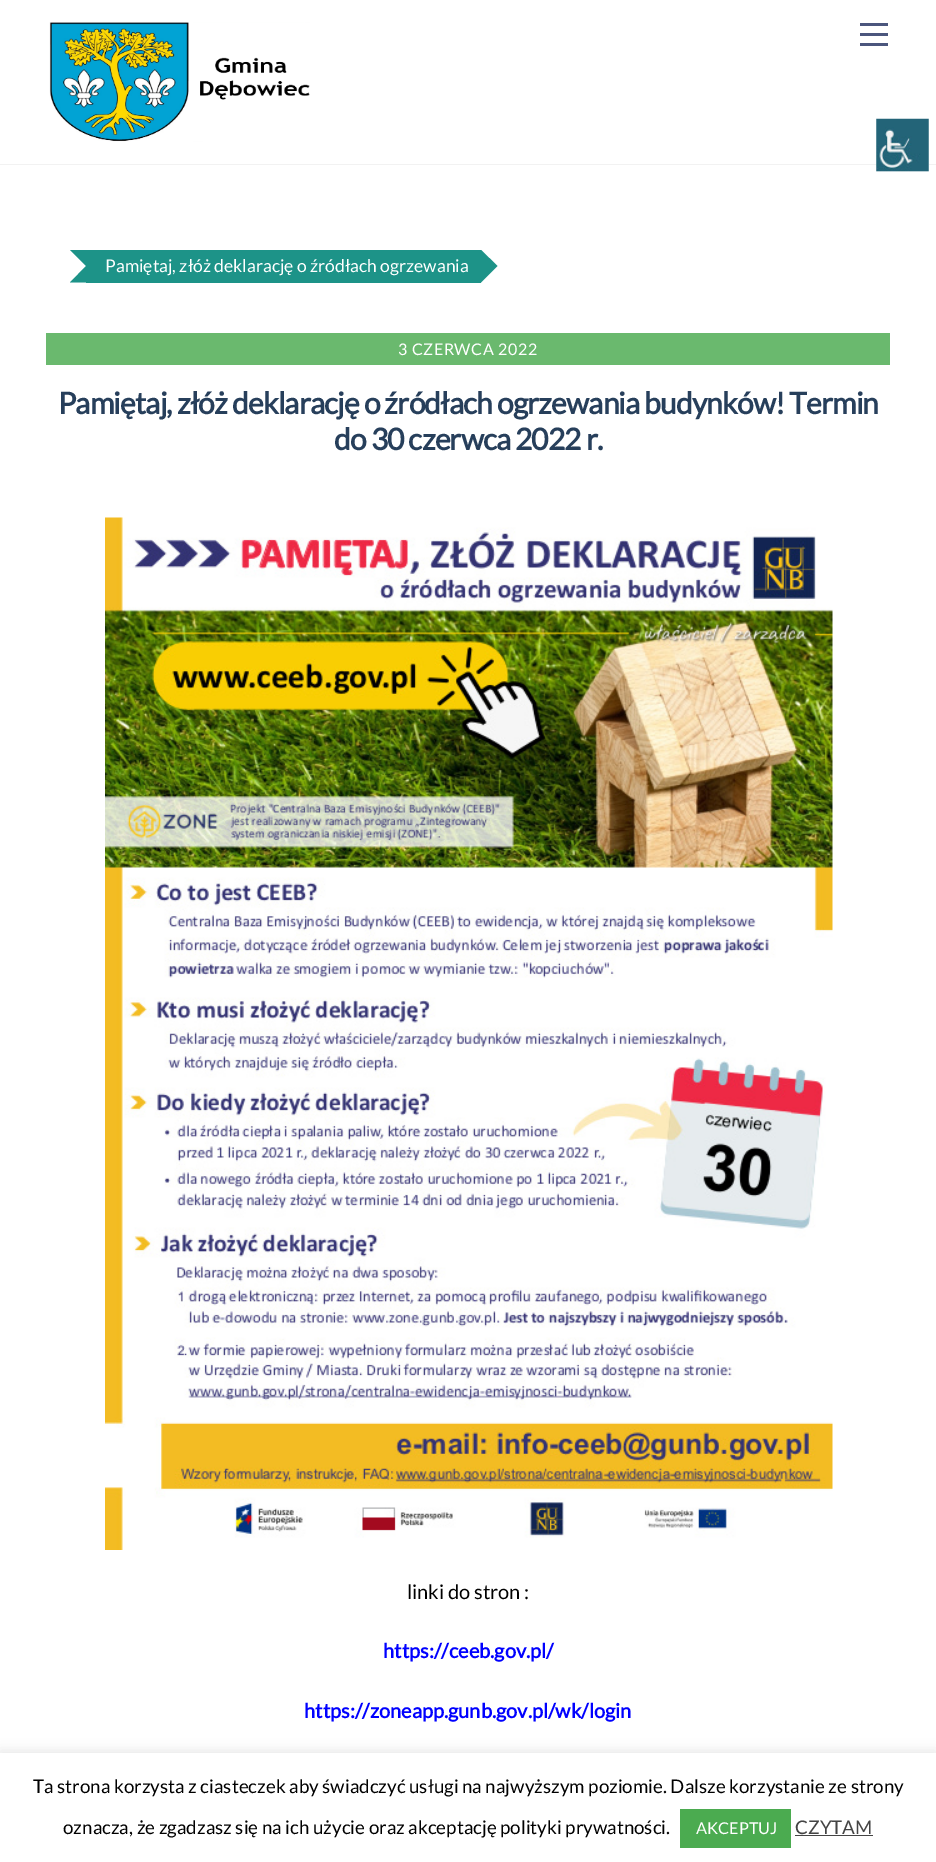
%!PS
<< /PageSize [936 1862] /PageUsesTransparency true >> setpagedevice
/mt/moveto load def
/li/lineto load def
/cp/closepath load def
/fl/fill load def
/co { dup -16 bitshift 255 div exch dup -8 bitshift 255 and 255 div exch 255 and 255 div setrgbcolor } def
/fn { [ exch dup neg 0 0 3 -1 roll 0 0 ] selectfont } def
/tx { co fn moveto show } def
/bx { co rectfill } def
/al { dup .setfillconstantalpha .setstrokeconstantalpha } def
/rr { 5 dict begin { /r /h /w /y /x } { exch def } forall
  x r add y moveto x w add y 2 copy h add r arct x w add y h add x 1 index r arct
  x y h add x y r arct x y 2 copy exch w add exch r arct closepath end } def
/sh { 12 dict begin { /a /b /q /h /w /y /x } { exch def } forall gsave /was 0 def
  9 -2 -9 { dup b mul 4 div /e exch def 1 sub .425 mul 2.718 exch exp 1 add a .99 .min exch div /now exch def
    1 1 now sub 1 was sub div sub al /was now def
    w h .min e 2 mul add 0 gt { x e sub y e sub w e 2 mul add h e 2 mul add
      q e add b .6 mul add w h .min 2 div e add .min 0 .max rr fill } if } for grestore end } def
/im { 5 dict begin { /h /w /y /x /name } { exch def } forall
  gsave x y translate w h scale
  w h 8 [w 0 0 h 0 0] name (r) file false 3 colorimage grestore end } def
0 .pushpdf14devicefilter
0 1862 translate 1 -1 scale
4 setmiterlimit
0 0 936 1862 16#FFFFFF bx
0 164 936 1 16#F2F2F2 bx
(media/1.raw) 876 118 53 54 im
(media/2.raw) 49 22 261 120 im
860 43 28 3 16#4B567D bx
860 23 28 3 16#4B567D bx
860 33 28 3 16#4B567D bx
103 250 378 33 16#1D9388 bx
70 250 mt 102.5 250 li 86 266 li cp fl
86 250 17 33 16#1D9388 bx
102.5 282.5 mt 70 282.5 li 86 266 li cp fl
481 282.5 mt 481 250 li 497.5 266 li cp fl
46 333 844 32 16#6AB96E bx
(media/3.raw) 105 517 728 1033 im
16#ACABAB co
0 1751 936 110 0 6 .3 sh
0 1753 936 109 16#FFFFFF bx
680 1809 111 39 16#4BAB50 bx
795 1835 78 1 16#444444 bx
(Pamiętaj, złóż deklarację o źródłach ogrzewania) 105 272 /Lato-Regular 17.5 16#FFFFFF tx
/Lato-Regular 16 fn
398 355 mt .6 0 (3 CZERWCA 2022) ashow
/Lato-Bold 30 fn
16#273F5B co
58 414 mt -.9 0 (Pamiętaj, złóż deklarację o źródłach ogrzewania budynków! Termin) ashow
334 450 mt -.9 0 (do 30 czerwca 2022 r.) ashow
(linki do stron :) 407 1599 /Lato-Regular 20 16#000000 tx
(https://ceeb.gov.pl/) 383 1658 /Lato-Bold 20 16#0000FF tx
(https://zoneapp.gunb.gov.pl/wk/login) 304 1718 /Lato-Bold 20 16#0000FF tx
(Ta strona korzysta z ciasteczek aby świadczyć usługi na najwyższym poziomie. Dalsze korzystanie ze strony) 33 1793 /Lato-Regular 18.75 16#000000 tx
(oznacza, że zgadzasz się na ich użycie oraz akceptację polityki prywatności.) 63 1834 /Lato-Regular 18.75 16#000000 tx
(AKCEPTUJ) 696 1834 /Lato-Regular 16.25 16#FFFFFF tx
(CZYTAM) 795 1834 /Lato-Regular 18.75 16#444444 tx
.poppdf14devicefilter showpage
